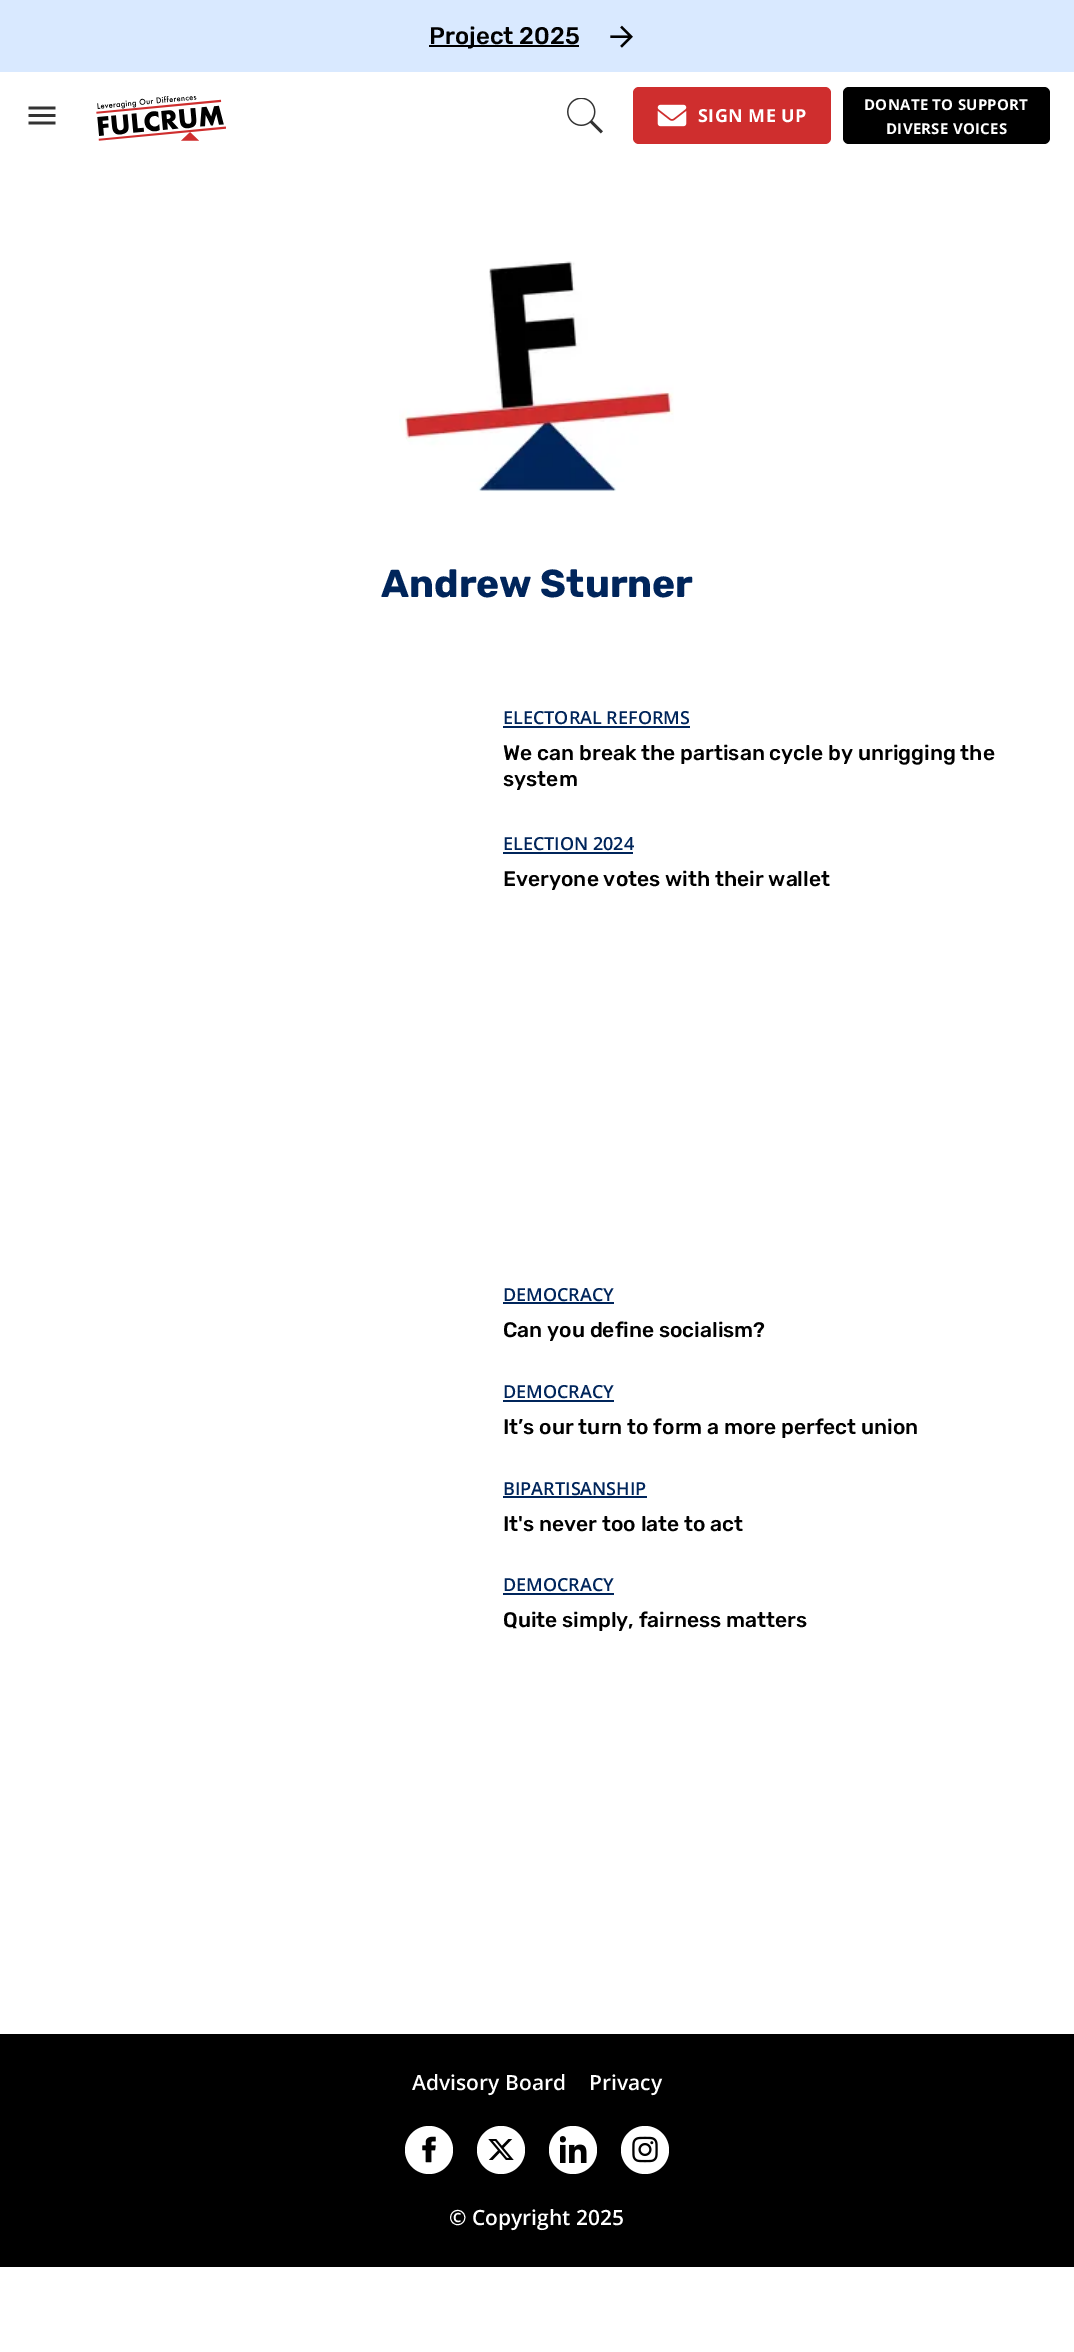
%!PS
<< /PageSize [1074 2352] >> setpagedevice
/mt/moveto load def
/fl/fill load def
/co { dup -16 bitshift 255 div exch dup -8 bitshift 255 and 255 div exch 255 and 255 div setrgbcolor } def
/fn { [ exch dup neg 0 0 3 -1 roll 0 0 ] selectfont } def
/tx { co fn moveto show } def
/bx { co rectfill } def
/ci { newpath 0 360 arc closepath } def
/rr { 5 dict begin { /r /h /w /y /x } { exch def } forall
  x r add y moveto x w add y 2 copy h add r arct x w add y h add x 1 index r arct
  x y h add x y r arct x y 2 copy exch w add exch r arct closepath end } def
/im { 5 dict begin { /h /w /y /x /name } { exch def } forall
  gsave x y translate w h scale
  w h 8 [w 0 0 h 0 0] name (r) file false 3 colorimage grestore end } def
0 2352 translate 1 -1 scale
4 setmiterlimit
0 0 1074 2352 16#FFFFFF bx
0 0 1074 72 16#D9E9FF bx
429 45 150 2 16#000000 bx
(media/1.raw) 610 25 23 23 im
(media/2.raw) 28 106 28 19 im
(media/3.raw) 96 96 130 45 im
(media/4.raw) 567 98 36 36 im
16#CF2E2E co
633 87 198 57 6 rr fl
(media/5.raw) 657 104 30 23 im
16#000000 co
843 87 207 57 6 rr fl
(media/6.raw) 399 261 275 231 im
503 726 187 2 16#00255B bx
503 852 130 2 16#00255B bx
503 1302 111 2 16#00255B bx
503 1400 111 2 16#00255B bx
503 1496 144 2 16#00255B bx
503 1593 111 2 16#00255B bx
0 2034 1074 233 16#000000 bx
16#FFFFFF co
429 2150 24 ci fl
(media/7.raw) 422 2136 14 27 im
501 2150 24 ci fl
(media/8.raw) 488 2139 26 21 im
573 2150 24 ci fl
(media/9.raw) 560 2136 27 27 im
645 2150 24 ci fl
(media/10.raw) 632 2136 26 27 im
(Project 2025) 429 44 /Rubik-Light 24 16#000000 tx
/OpenSans-Bold 18 fn
16#FFFFFF co
698 122 mt .4 0 (SIGN ME UP) ashow
/OpenSans-Bold 15 fn
864 110 mt .25 0 (DONATE TO SUPPORT) ashow
886 134 mt .25 0 (DIVERSE VOICES) ashow
(Andrew Sturner) 381 597 /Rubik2-Light 39 16#00255B tx
(ELECTORAL REFORMS) 503 724 /OpenSans-SemiBold 18 16#00255B tx
(We can break the partisan cycle by unrigging the) 503 760 /Rubik-Light 21 16#000000 tx
(system) 503 786 /Rubik-Light 21 16#000000 tx
(ELECTION 2024) 503 850 /OpenSans-SemiBold 18 16#00255B tx
(Everyone votes with their wallet) 503 886 /Rubik-Light 21 16#000000 tx
(DEMOCRACY) 503 1301 /OpenSans-SemiBold 18 16#00255B tx
(Can you define socialism?) 503 1337 /Rubik-Light 21 16#000000 tx
(DEMOCRACY) 503 1398 /OpenSans-SemiBold 18 16#00255B tx
(It’s our turn to form a more perfect union) 503 1434 /Rubik-Light 21 16#000000 tx
(BIPARTISANSHIP) 503 1495 /OpenSans-SemiBold 18 16#00255B tx
(It's never too late to act) 503 1531 /Rubik-Light 21 16#000000 tx
(DEMOCRACY) 503 1591 /OpenSans-SemiBold 18 16#00255B tx
(Quite simply, fairness matters) 503 1627 /Rubik-Light 21 16#000000 tx
(Advisory Board) 412 2090 /OpenSans-SemiBold 21 16#FFFFFF tx
(Privacy) 589 2090 /OpenSans-SemiBold 21 16#FFFFFF tx
(© Copyright 2025) 449 2225 /OpenSans-SemiBold 21 16#FFFFFF tx
showpage
